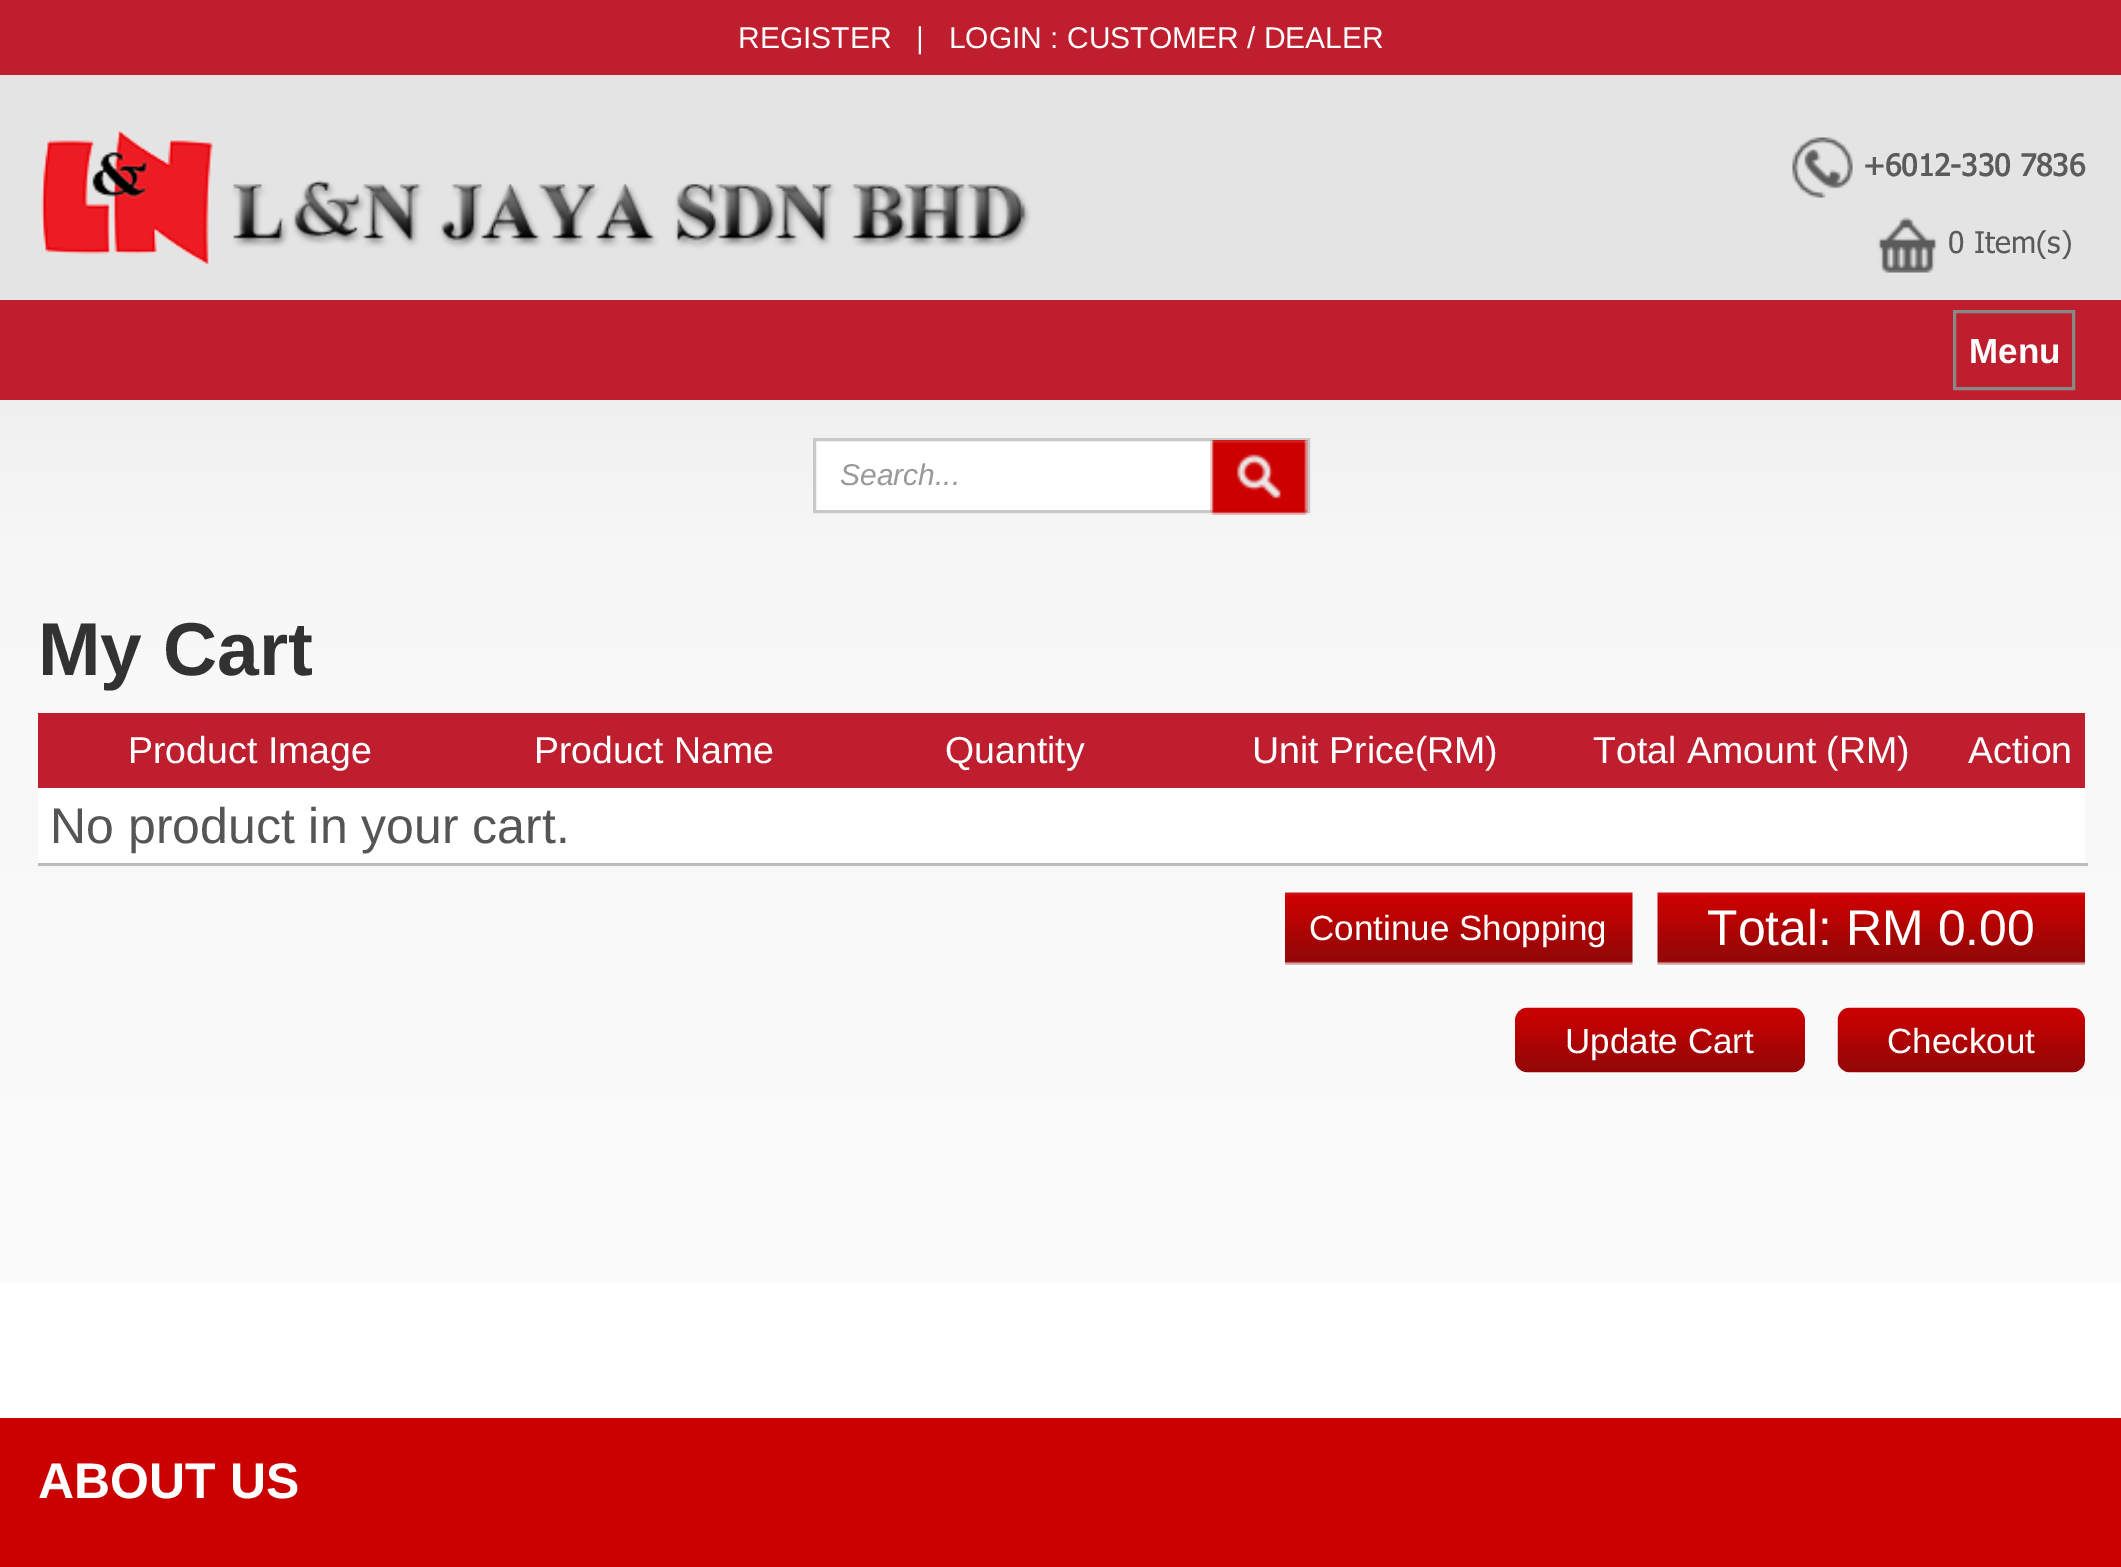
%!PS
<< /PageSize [2121 1567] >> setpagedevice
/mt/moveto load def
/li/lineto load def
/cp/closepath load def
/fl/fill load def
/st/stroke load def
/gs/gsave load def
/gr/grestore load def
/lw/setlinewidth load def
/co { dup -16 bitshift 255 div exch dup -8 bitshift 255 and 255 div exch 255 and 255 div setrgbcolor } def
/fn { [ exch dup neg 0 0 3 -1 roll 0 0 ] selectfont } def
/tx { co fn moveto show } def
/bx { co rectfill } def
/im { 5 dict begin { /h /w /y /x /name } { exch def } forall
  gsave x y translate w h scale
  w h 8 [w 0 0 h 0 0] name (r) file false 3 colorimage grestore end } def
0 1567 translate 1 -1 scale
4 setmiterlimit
0 0 2121 1567 16#FFFFFF bx
(media/1.raw) 0 400 2121 882 im
0 75 2121 225 16#E4E4E4 bx
0 0 2121 75 16#BF1E2E bx
(media/2.raw) 41 130 990 136 im
(media/3.raw) 1792 137 61 61 im
(media/4.raw) 1877 217 61 56 im
0 300 2121 100 16#BF1E2E bx
16#888888 co
3 lw
1954.5 311.5 119 77 rectstroke
16#FFFFFF co
814.5 439.5 mt 1308.5 439.5 li 1308.5 511.5 li 814.5 511.5 li cp gs fl gr
16#C9C9C9 co
st
(media/5.raw) 1210 440 98 75 im
38 713 2047 75 16#BF1E2E bx
38 788 2047 75 16#FFFFFF bx
38 863 2050 3 16#BCBCBC bx
(media/6.raw) 1285 892 348 73 im
(media/7.raw) 1657 892 428 73 im
(media/8.raw) 1515 1007 290 66 im
(media/9.raw) 1837 1007 248 66 im
0 1418 2121 149 16#CB0000 bx
(REGISTER) 738 48 /LiberationSans-Regular 30 16#FFFFFF tx
(|   LOGIN : CUSTOMER / DEALER) 916 48 /LiberationSans-Regular 30 16#FFFFFF tx
(+6012-330 7836) 1863 176 /Tahoma-Bold 30 16#5B5B5B tx
(0 Item\(s\)) 1948 253 /Tahoma-Regular 30 16#5B5B5B tx
(Menu) 1969 363 /LiberationSans-Bold 35 16#FFFFFF tx
(Search...) 840 485 /LiberationSans-Italic 30 16#999999 tx
(My Cart) 38 675 /LiberationSans-Bold 75 16#323232 tx
(Product Image) 128 763 /LiberationSans-Regular 37.5 16#FFFFFF tx
(Product Name) 534 763 /LiberationSans-Regular 37.5 16#FFFFFF tx
(Quantity) 945 763 /LiberationSans-Regular 37.5 16#FFFFFF tx
(Unit Price\(RM\)) 1252 763 /LiberationSans-Regular 37.5 16#FFFFFF tx
(Total Amount \(RM\)) 1593 763 /LiberationSans-Regular 37.5 16#FFFFFF tx
(Action) 1968 763 /LiberationSans-Regular 37.5 16#FFFFFF tx
(No product in your cart.) 50 843 /LiberationSans-Regular 50 16#555555 tx
(Continue Shopping) 1309 940 /LiberationSans-Regular 35 16#FFFFFF tx
(Total: RM 0.00) 1707 945 /LiberationSans-Regular 50 16#FFFFFF tx
(Update Cart) 1565 1053 /LiberationSans-Regular 35 16#FFFFFF tx
(Checkout) 1887 1053 /LiberationSans-Regular 35 16#FFFFFF tx
(ABOUT US) 38 1498 /LiberationSans-Bold 50 16#FFFFFF tx
showpage
